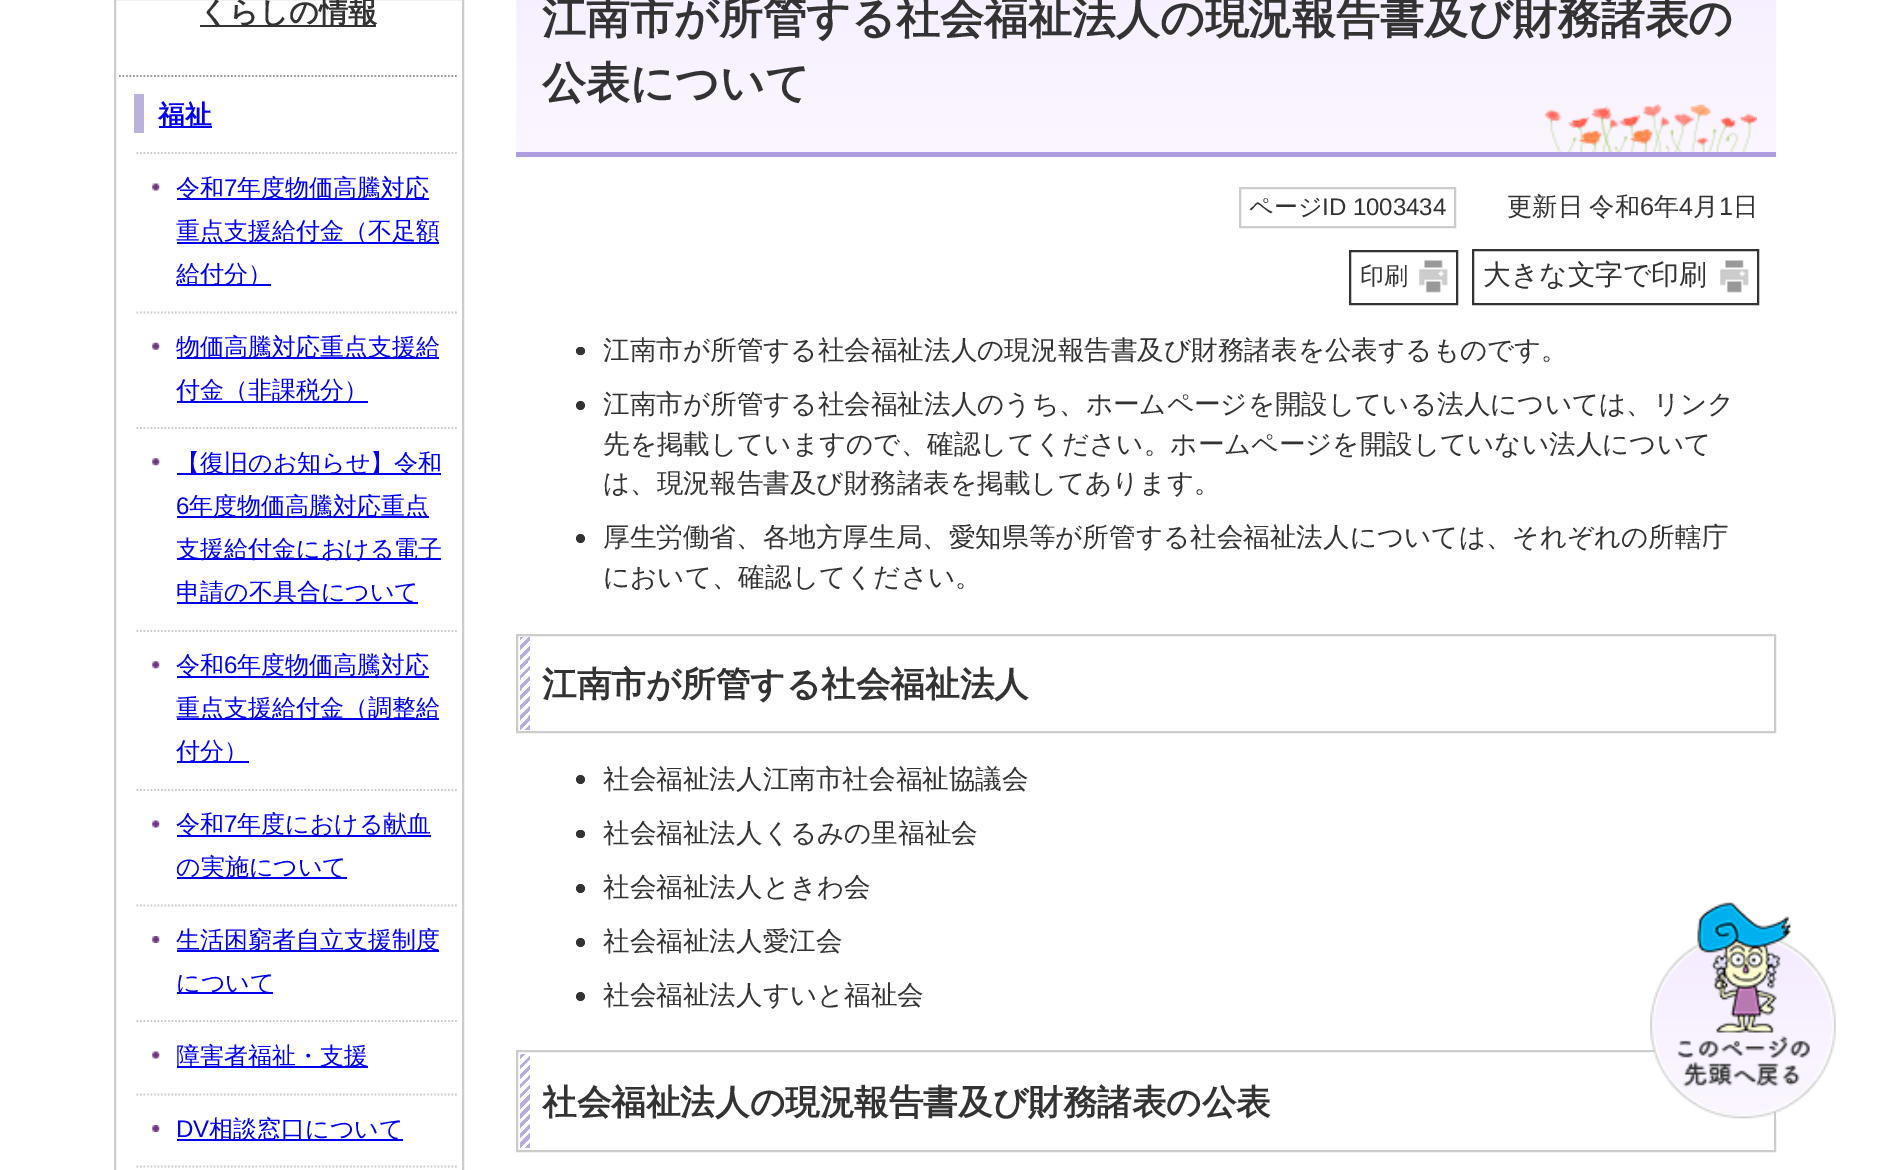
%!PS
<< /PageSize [1888 1170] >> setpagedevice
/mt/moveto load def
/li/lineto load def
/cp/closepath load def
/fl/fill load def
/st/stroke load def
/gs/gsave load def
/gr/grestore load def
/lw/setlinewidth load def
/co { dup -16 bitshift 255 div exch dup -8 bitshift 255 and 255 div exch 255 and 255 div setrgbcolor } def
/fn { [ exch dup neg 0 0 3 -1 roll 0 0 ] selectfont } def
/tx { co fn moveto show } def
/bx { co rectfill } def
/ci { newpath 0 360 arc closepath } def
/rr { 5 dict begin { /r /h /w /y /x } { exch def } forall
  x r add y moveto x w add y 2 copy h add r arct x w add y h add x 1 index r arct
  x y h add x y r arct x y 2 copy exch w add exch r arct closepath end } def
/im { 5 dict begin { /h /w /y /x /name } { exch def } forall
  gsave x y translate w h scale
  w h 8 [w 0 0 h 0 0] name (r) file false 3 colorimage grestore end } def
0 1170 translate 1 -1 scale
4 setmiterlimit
0 0 1888 1170 16#FFFFFF bx
16#CCCCCC co
2 lw
115 -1 348 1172 rectstroke
200 25 176 2 16#333333 bx
134 94 10 39 16#BBB1DD bx
16#999999 co
1.8 lw
[1.75 1.75] 0 setdash
119 76 mt 458.5 76 li st
159 126 53 2 16#0000EE bx
(media/1.raw) 152 183 8 8 im
16#CCCCCC co
136.5 153 mt 458.5 153 li st
177 198 252 2 16#0000EE bx
177 242 262 2 16#0000EE bx
177 284 94 2 16#0000EE bx
(media/2.raw) 152 342 8 8 im
16#CCCCCC co
136.5 312.5 mt 458.5 312.5 li st
177 357 262 2 16#0000EE bx
177 401 191 2 16#0000EE bx
(media/3.raw) 152 458 8 8 im
16#CCCCCC co
136.5 428 mt 458.5 428 li st
177 473 264 2 16#0000EE bx
177 516 252 2 16#0000EE bx
177 558 264 2 16#0000EE bx
177 602 241 2 16#0000EE bx
(media/3.raw) 152 661 8 8 im
16#CCCCCC co
136.5 631 mt 458.5 631 li st
177 676 252 2 16#0000EE bx
177 718 262 2 16#0000EE bx
177 761 72 2 16#0000EE bx
(media/1.raw) 152 820 8 8 im
16#CCCCCC co
136.5 790 mt 458.5 790 li st
177 835 254 2 16#0000EE bx
177 877 170 2 16#0000EE bx
(media/4.raw) 152 936 8 7 im
16#CCCCCC co
136.5 905.5 mt 458.5 905.5 li st
177 950 262 2 16#0000EE bx
177 992 96 2 16#0000EE bx
(media/1.raw) 152 1051 8 8 im
16#CCCCCC co
136.5 1021 mt 458.5 1021 li st
177 1066 191 2 16#0000EE bx
(media/4.raw) 152 1125 8 7 im
16#CCCCCC co
136.5 1094.5 mt 458.5 1094.5 li st
177 1139 226 2 16#0000EE bx
16#CCCCCC co
136.5 1166.5 mt 458.5 1166.5 li st
(media/5.raw) 516 0 1261 158 im
516 152 1260 5 16#AE9EE0 bx
16#CCCCCC co
2 lw
[] 0 setdash
1240 188 215 39 rectstroke
16#333333 co
1350 251 107 53 rectstroke
(media/6.raw) 1419 260 29 33 im
1473 250 285 54 rectstroke
(media/6.raw) 1720 260 29 33 im
576 347 9 8 4 rr fl
580.5 405.5 4.5 ci fl
580.5 538.5 4.5 ci fl
16#CCCCCC co
517 635 1258 97 rectstroke
gs 520 637 mt 530 637 li 530 730 li 520 730 li cp clip newpath
<< /ShadingType 2 /ColorSpace /DeviceRGB /Coords [551 709 496 655] /Extend [true true] /Function << /FunctionType 3 /Domain [0 1] /Functions [<< /FunctionType 2 /Domain [0 1] /C0 [.722 .678 .859] /C1 [.722 .678 .859] /N 1 >> << /FunctionType 2 /Domain [0 1] /C0 [1 1 1] /C1 [1 1 1] /N 1 >> << /FunctionType 2 /Domain [0 1] /C0 [.722 .678 .859] /C1 [.722 .678 .859] /N 1 >> << /FunctionType 2 /Domain [0 1] /C0 [1 1 1] /C1 [1 1 1] /N 1 >> << /FunctionType 2 /Domain [0 1] /C0 [.722 .678 .859] /C1 [.722 .678 .859] /N 1 >> << /FunctionType 2 /Domain [0 1] /C0 [1 1 1] /C1 [1 1 1] /N 1 >> << /FunctionType 2 /Domain [0 1] /C0 [.722 .678 .859] /C1 [.722 .678 .859] /N 1 >> << /FunctionType 2 /Domain [0 1] /C0 [1 1 1] /C1 [1 1 1] /N 1 >> << /FunctionType 2 /Domain [0 1] /C0 [.722 .678 .859] /C1 [.722 .678 .859] /N 1 >> << /FunctionType 2 /Domain [0 1] /C0 [1 1 1] /C1 [1 1 1] /N 1 >> << /FunctionType 2 /Domain [0 1] /C0 [.722 .678 .859] /C1 [.722 .678 .859] /N 1 >> << /FunctionType 2 /Domain [0 1] /C0 [1 1 1] /C1 [1 1 1] /N 1 >> << /FunctionType 2 /Domain [0 1] /C0 [.722 .678 .859] /C1 [.722 .678 .859] /N 1 >> << /FunctionType 2 /Domain [0 1] /C0 [1 1 1] /C1 [1 1 1] /N 1 >> << /FunctionType 2 /Domain [0 1] /C0 [.722 .678 .859] /C1 [.722 .678 .859] /N 1 >> << /FunctionType 2 /Domain [0 1] /C0 [1 1 1] /C1 [1 1 1] /N 1 >> << /FunctionType 2 /Domain [0 1] /C0 [.722 .678 .859] /C1 [.722 .678 .859] /N 1 >> << /FunctionType 2 /Domain [0 1] /C0 [1 1 1] /C1 [1 1 1] /N 1 >> << /FunctionType 2 /Domain [0 1] /C0 [.722 .678 .859] /C1 [.722 .678 .859] /N 1 >> << /FunctionType 2 /Domain [0 1] /C0 [1 1 1] /C1 [1 1 1] /N 1 >> << /FunctionType 2 /Domain [0 1] /C0 [.722 .678 .859] /C1 [.722 .678 .859] /N 1 >> << /FunctionType 2 /Domain [0 1] /C0 [1 1 1] /C1 [1 1 1] /N 1 >>] /Bounds [.05 .09 .14 .18 .23 .27 .32 .36 .41 .45 .5 .55 .59 .64 .68 .73 .77 .82 .86 .91 .95] /Encode [0 1 0 1 0 1 0 1 0 1 0 1 0 1 0 1 0 1 0 1 0 1 0 1 0 1 0 1 0 1 0 1 0 1 0 1 0 1 0 1 0 1 0 1] >> >> shfill gr
16#333333 co
580.5 779.5 4.5 ci fl
576 830 9 8 4 rr fl
580.5 888.5 4.5 ci fl
580.5 942.5 4.5 ci fl
580.5 996.5 4.5 ci fl
16#CCCCCC co
517 1051 1258 100 rectstroke
gs 520 1054 mt 530 1054 li 530 1148 li 520 1148 li cp clip newpath
<< /ShadingType 2 /ColorSpace /DeviceRGB /Coords [551 1127 497 1073] /Extend [true true] /Function << /FunctionType 3 /Domain [0 1] /Functions [<< /FunctionType 2 /Domain [0 1] /C0 [.722 .678 .859] /C1 [.722 .678 .859] /N 1 >> << /FunctionType 2 /Domain [0 1] /C0 [1 1 1] /C1 [1 1 1] /N 1 >> << /FunctionType 2 /Domain [0 1] /C0 [.722 .678 .859] /C1 [.722 .678 .859] /N 1 >> << /FunctionType 2 /Domain [0 1] /C0 [1 1 1] /C1 [1 1 1] /N 1 >> << /FunctionType 2 /Domain [0 1] /C0 [.722 .678 .859] /C1 [.722 .678 .859] /N 1 >> << /FunctionType 2 /Domain [0 1] /C0 [1 1 1] /C1 [1 1 1] /N 1 >> << /FunctionType 2 /Domain [0 1] /C0 [.722 .678 .859] /C1 [.722 .678 .859] /N 1 >> << /FunctionType 2 /Domain [0 1] /C0 [1 1 1] /C1 [1 1 1] /N 1 >> << /FunctionType 2 /Domain [0 1] /C0 [.722 .678 .859] /C1 [.722 .678 .859] /N 1 >> << /FunctionType 2 /Domain [0 1] /C0 [1 1 1] /C1 [1 1 1] /N 1 >> << /FunctionType 2 /Domain [0 1] /C0 [.722 .678 .859] /C1 [.722 .678 .859] /N 1 >> << /FunctionType 2 /Domain [0 1] /C0 [1 1 1] /C1 [1 1 1] /N 1 >> << /FunctionType 2 /Domain [0 1] /C0 [.722 .678 .859] /C1 [.722 .678 .859] /N 1 >> << /FunctionType 2 /Domain [0 1] /C0 [1 1 1] /C1 [1 1 1] /N 1 >> << /FunctionType 2 /Domain [0 1] /C0 [.722 .678 .859] /C1 [.722 .678 .859] /N 1 >> << /FunctionType 2 /Domain [0 1] /C0 [1 1 1] /C1 [1 1 1] /N 1 >> << /FunctionType 2 /Domain [0 1] /C0 [.722 .678 .859] /C1 [.722 .678 .859] /N 1 >> << /FunctionType 2 /Domain [0 1] /C0 [1 1 1] /C1 [1 1 1] /N 1 >> << /FunctionType 2 /Domain [0 1] /C0 [.722 .678 .859] /C1 [.722 .678 .859] /N 1 >> << /FunctionType 2 /Domain [0 1] /C0 [1 1 1] /C1 [1 1 1] /N 1 >> << /FunctionType 2 /Domain [0 1] /C0 [.722 .678 .859] /C1 [.722 .678 .859] /N 1 >> << /FunctionType 2 /Domain [0 1] /C0 [1 1 1] /C1 [1 1 1] /N 1 >>] /Bounds [.05 .09 .14 .18 .23 .27 .32 .36 .41 .45 .5 .55 .59 .64 .68 .73 .77 .82 .86 .91 .95] /Encode [0 1 0 1 0 1 0 1 0 1 0 1 0 1 0 1 0 1 0 1 0 1 0 1 0 1 0 1 0 1 0 1 0 1 0 1 0 1 0 1 0 1 0 1] >> >> shfill gr
(media/7.raw) 1650 902 186 217 im
(くらしの情報) 199 22 /WenQuanYiZenHei-Bold 29.25 16#333333 tx
(福祉) 158 124 /WenQuanYiZenHei-Bold 26.6 16#0000EE tx
(令和) 176 196 /WenQuanYiZenHei-Medium 24 16#0000EE tx
(7) 224 196 /LiberationSans-Regular 24 16#0000EE tx
(年度物価高騰対応) 237 196 /WenQuanYiZenHei-Medium 24 16#0000EE tx
(重点支援給付金（不足額) 176 239 /WenQuanYiZenHei-Medium 24 16#0000EE tx
(給付分）) 176 282 /WenQuanYiZenHei-Medium 24 16#0000EE tx
(物価高騰対応重点支援給) 176 355 /WenQuanYiZenHei-Medium 24 16#0000EE tx
(付金（非課税分）) 176 398 /WenQuanYiZenHei-Medium 24 16#0000EE tx
(【復旧のお知らせ】令和) 176 471 /WenQuanYiZenHei-Medium 24 16#0000EE tx
(6) 176 514 /LiberationSans-Regular 24 16#0000EE tx
(年度物価高騰対応重点) 189 514 /WenQuanYiZenHei-Medium 24 16#0000EE tx
(支援給付金における電子) 176 557 /WenQuanYiZenHei-Medium 24 16#0000EE tx
(申請の不具合について) 176 600 /WenQuanYiZenHei-Medium 24 16#0000EE tx
(令和) 176 673 /WenQuanYiZenHei-Medium 24 16#0000EE tx
(6) 224 673 /LiberationSans-Regular 24 16#0000EE tx
(年度物価高騰対応) 237 673 /WenQuanYiZenHei-Medium 24 16#0000EE tx
(重点支援給付金（調整給) 176 716 /WenQuanYiZenHei-Medium 24 16#0000EE tx
(付分）) 176 759 /WenQuanYiZenHei-Medium 24 16#0000EE tx
(令和) 176 832 /WenQuanYiZenHei-Medium 24 16#0000EE tx
(7) 224 832 /LiberationSans-Regular 24 16#0000EE tx
(年度における献血) 237 832 /WenQuanYiZenHei-Medium 24 16#0000EE tx
(の実施について) 176 875 /WenQuanYiZenHei-Medium 24 16#0000EE tx
(生活困窮者自立支援制度) 176 948 /WenQuanYiZenHei-Medium 24 16#0000EE tx
(について) 176 991 /WenQuanYiZenHei-Medium 24 16#0000EE tx
(障害者福祉・支援) 176 1064 /WenQuanYiZenHei-Medium 24 16#0000EE tx
(DV) 176 1137 /LiberationSans-Regular 24 16#0000EE tx
(相談窓口について) 209 1137 /WenQuanYiZenHei-Medium 24 16#0000EE tx
(江南市が所管する社会福祉法人の現況報告書及び財務諸表の) 542 33 /WenQuanYiZenHei-Bold 43.9 16#333333 tx
(公表について) 542 98 /WenQuanYiZenHei-Bold 43.9 16#333333 tx
(ページ) 1249 215 /WenQuanYiZenHei-Medium 24 16#333333 tx
(ID 1003434) 1322 215 /LiberationSans-Regular 24 16#333333 tx
/WenQuanYiZenHei-Medium 25.25 fn
1507 215 mt -1 0 32 (更新日 令和) widthshow
(6) 1640 215 /LiberationSans-Regular 25.25 16#333333 tx
(年) 1654 215 /WenQuanYiZenHei-Medium 25.25 16#333333 tx
(4) 1679 215 /LiberationSans-Regular 25.25 16#333333 tx
(月) 1693 215 /WenQuanYiZenHei-Medium 25.25 16#333333 tx
(1) 1719 215 /LiberationSans-Regular 25.25 16#333333 tx
(日) 1733 215 /WenQuanYiZenHei-Medium 25.25 16#333333 tx
(印刷) 1360 284 /WenQuanYiZenHei-Medium 24 16#333333 tx
(大きな文字で印刷) 1483 284 /WenQuanYiZenHei-Medium 27.75 16#333333 tx
(江南市が所管する社会福祉法人の現況報告書及び財務諸表を公表するものです。) 603 359 /WenQuanYiZenHei-Medium 26.6 16#333333 tx
(江南市が所管する社会福祉法人のうち、ホームページを開設している法人については、リンク) 603 413 /WenQuanYiZenHei-Medium 26.6 16#333333 tx
(先を掲載していますので、確認してください。ホームページを開設していない法人について) 603 453 /WenQuanYiZenHei-Medium 26.6 16#333333 tx
(は、現況報告書及び財務諸表を掲載してあります。) 603 492 /WenQuanYiZenHei-Medium 26.6 16#333333 tx
(厚生労働省、各地方厚生局、愛知県等が所管する社会福祉法人については、それぞれの所轄庁) 603 546 /WenQuanYiZenHei-Medium 26.6 16#333333 tx
(において、確認してください。) 603 586 /WenQuanYiZenHei-Medium 26.6 16#333333 tx
(江南市が所管する社会福祉法人) 542 696 /WenQuanYiZenHei-Bold 34.6 16#333333 tx
(社会福祉法人江南市社会福祉協議会) 603 788 /WenQuanYiZenHei-Medium 26.6 16#333333 tx
(社会福祉法人くるみの里福祉会) 603 842 /WenQuanYiZenHei-Medium 26.6 16#333333 tx
(社会福祉法人ときわ会) 603 896 /WenQuanYiZenHei-Medium 26.6 16#333333 tx
(社会福祉法人愛江会) 603 950 /WenQuanYiZenHei-Medium 26.6 16#333333 tx
(社会福祉法人すいと福祉会) 603 1004 /WenQuanYiZenHei-Medium 26.6 16#333333 tx
(社会福祉法人の現況報告書及び財務諸表の公表) 542 1114 /WenQuanYiZenHei-Bold 34.6 16#333333 tx
showpage
